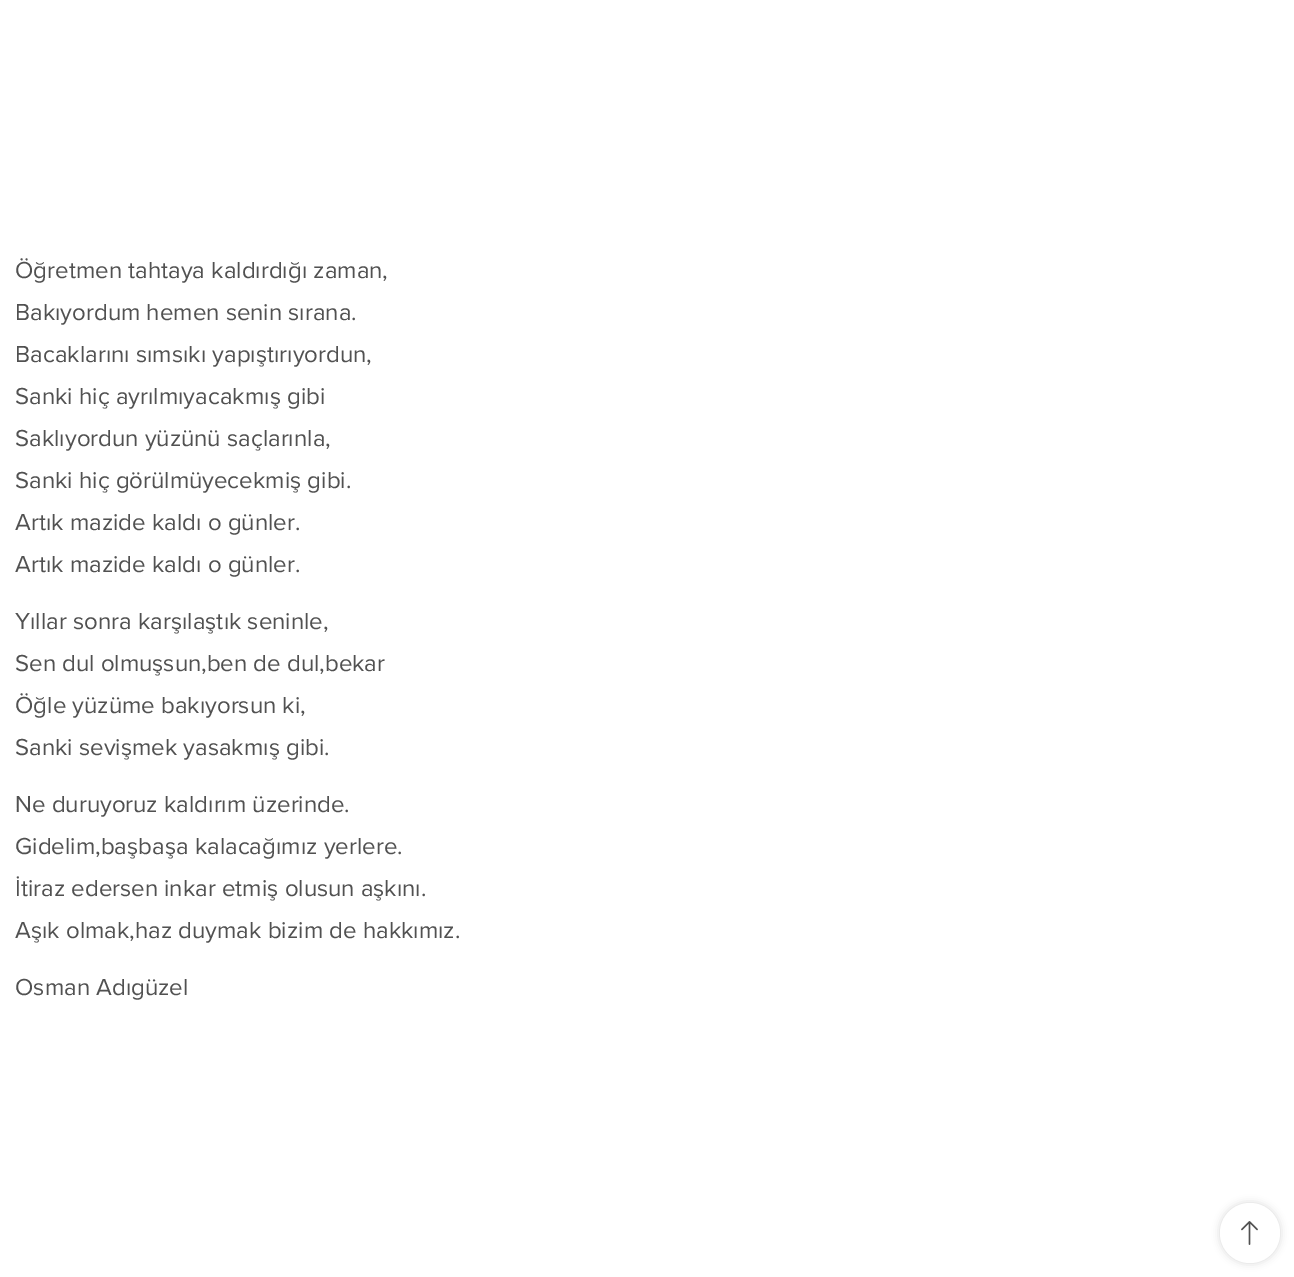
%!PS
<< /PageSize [1294 1277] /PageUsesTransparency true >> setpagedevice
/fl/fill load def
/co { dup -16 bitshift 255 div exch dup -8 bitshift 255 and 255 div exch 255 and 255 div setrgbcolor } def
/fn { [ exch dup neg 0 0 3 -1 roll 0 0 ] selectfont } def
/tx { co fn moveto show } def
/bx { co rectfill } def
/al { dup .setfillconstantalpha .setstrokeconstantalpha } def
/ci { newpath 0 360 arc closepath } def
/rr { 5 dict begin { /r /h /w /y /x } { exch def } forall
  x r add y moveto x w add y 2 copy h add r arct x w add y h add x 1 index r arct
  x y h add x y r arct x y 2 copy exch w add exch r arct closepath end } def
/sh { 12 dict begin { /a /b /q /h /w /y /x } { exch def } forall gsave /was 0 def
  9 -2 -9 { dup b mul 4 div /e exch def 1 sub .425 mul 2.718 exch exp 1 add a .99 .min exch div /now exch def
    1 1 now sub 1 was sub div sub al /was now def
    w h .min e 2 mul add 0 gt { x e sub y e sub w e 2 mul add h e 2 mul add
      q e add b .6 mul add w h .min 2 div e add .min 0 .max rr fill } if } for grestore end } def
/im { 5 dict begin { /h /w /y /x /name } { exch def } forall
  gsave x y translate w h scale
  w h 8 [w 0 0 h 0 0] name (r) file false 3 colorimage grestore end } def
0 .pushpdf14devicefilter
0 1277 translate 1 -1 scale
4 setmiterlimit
0 0 1294 1277 16#FFFFFF bx
16#000000 co
1220 1203 60 60 30 4 .15 sh
16#FFFFFF co
1250 1233 30 ci fl
(media/1.raw) 1241 1221 17 24 im
(Öğretmen tahtaya kaldırdığı zaman,) 15 278 /ProximaNova-Regular 24 16#515151 tx
(Bakıyordum hemen senin sırana.) 15 320 /ProximaNova-Regular 24 16#515151 tx
(Bacaklarını sımsıkı yapıştırıyordun,) 15 362 /ProximaNova-Regular 24 16#515151 tx
(Sanki hiç ayrılmıyacakmış gibi) 15 404 /ProximaNova-Regular 24 16#515151 tx
(Saklıyordun yüzünü saçlarınla,) 15 446 /ProximaNova-Regular 24 16#515151 tx
(Sanki hiç görülmüyecekmiş gibi.) 15 488 /ProximaNova-Regular 24 16#515151 tx
(Artık mazide kaldı o günler.) 15 530 /ProximaNova-Regular 24 16#515151 tx
(Artık mazide kaldı o günler.) 15 572 /ProximaNova-Regular 24 16#515151 tx
(Yıllar sonra karşılaştık seninle,) 15 629 /ProximaNova-Regular 24 16#515151 tx
(Sen dul olmuşsun,ben de dul,bekar) 15 671 /ProximaNova-Regular 24 16#515151 tx
(Öğle yüzüme bakıyorsun ki,) 15 713 /ProximaNova-Regular 24 16#515151 tx
(Sanki sevişmek yasakmış gibi.) 15 755 /ProximaNova-Regular 24 16#515151 tx
(Ne duruyoruz kaldırım üzerinde.) 15 812 /ProximaNova-Regular 24 16#515151 tx
(Gidelim,başbaşa kalacağımız yerlere.) 15 854 /ProximaNova-Regular 24 16#515151 tx
(İtiraz edersen inkar etmiş olusun aşkını.) 15 896 /ProximaNova-Regular 24 16#515151 tx
(Aşık olmak,haz duymak bizim de hakkımız.) 15 938 /ProximaNova-Regular 24 16#515151 tx
(Osman Adıgüzel) 15 995 /ProximaNova-Regular 24 16#515151 tx
.poppdf14devicefilter showpage
